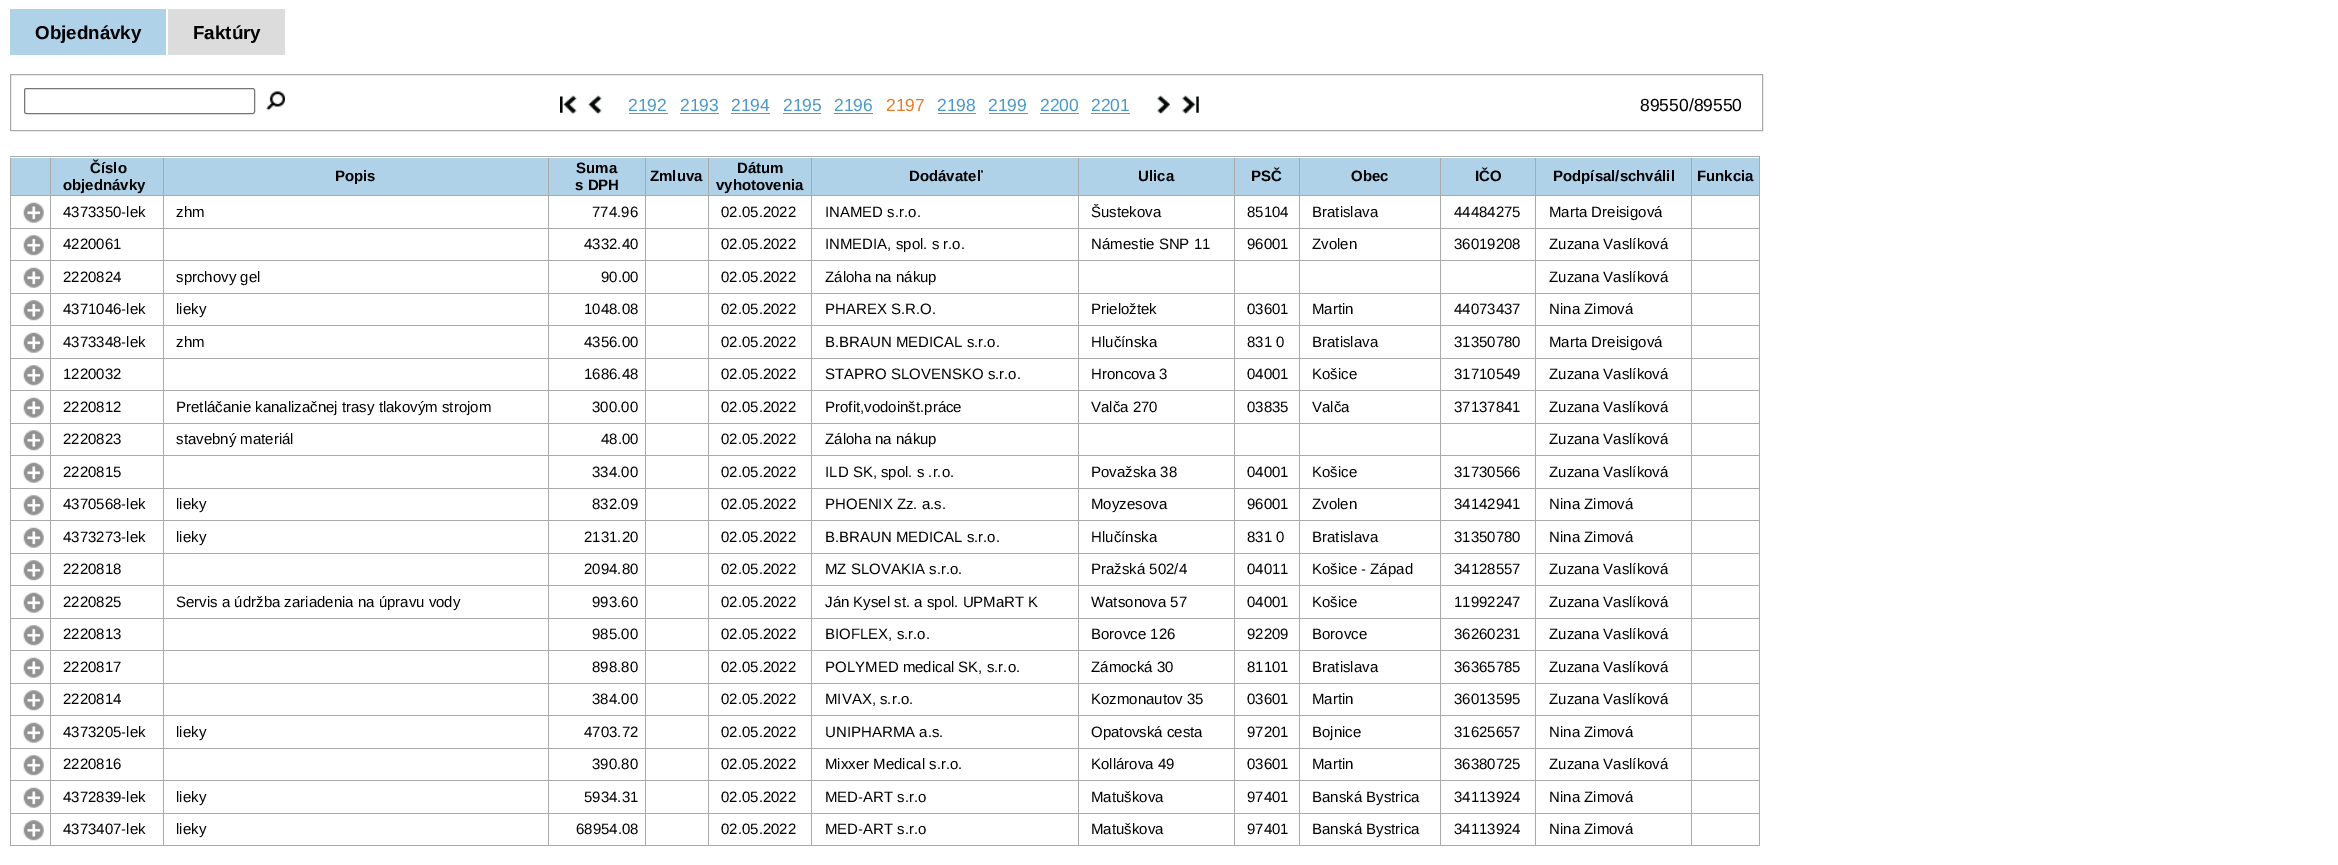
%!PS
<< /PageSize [2338 865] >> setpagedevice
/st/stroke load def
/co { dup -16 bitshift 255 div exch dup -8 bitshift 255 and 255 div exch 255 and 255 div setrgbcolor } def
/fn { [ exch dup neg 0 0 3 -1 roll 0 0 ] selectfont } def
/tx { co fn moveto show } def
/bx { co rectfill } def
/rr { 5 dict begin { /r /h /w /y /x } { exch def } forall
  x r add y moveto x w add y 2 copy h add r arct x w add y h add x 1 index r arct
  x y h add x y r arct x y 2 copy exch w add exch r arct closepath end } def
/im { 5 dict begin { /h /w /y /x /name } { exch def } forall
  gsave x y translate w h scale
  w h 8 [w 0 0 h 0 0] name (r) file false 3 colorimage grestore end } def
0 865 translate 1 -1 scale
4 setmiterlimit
0 0 2338 865 16#FFFFFF bx
10 9 156 46 16#B0D2E9 bx
168 9 117 46 16#DCDCDC bx
16#AAAAAA co
10.5 74.5 1752 56 rectstroke
16#767676 co
24.5 88.5 230 25 2 rr st
(media/1.raw) 266 91 19 20 im
(media/2.raw) 560 95 17 19 im
(media/3.raw) 588 95 14 19 im
629 113 39 1 16#4C99C7 bx
680 113 39 1 16#4C99C7 bx
731 113 39 1 16#4C99C7 bx
783 113 38 1 16#4C99C7 bx
834 113 39 1 16#4C99C7 bx
938 113 38 1 16#4C99C7 bx
989 113 39 1 16#4C99C7 bx
1040 113 39 1 16#4C99C7 bx
1091 113 39 1 16#4C99C7 bx
(media/4.raw) 1157 95 13 19 im
(media/5.raw) 1182 95 17 19 im
10 156 1750 1 16#AAAAAA bx
1759 156 1 690 16#AAAAAA bx
11 158 39 37 16#B0D2E9 bx
10 195 1749 1 16#AAAAAA bx
10 158 1 38 16#AAAAAA bx
51 158 112 37 16#B0D2E9 bx
50 158 1 38 16#AAAAAA bx
164 158 384 37 16#B0D2E9 bx
163 158 1 38 16#AAAAAA bx
549 158 96 37 16#B0D2E9 bx
548 158 1 38 16#AAAAAA bx
646 158 62 37 16#B0D2E9 bx
645 158 1 38 16#AAAAAA bx
709 158 102 37 16#B0D2E9 bx
708 158 1 38 16#AAAAAA bx
812 158 266 37 16#B0D2E9 bx
811 158 1 38 16#AAAAAA bx
1079 158 155 37 16#B0D2E9 bx
1078 158 1 38 16#AAAAAA bx
1235 158 64 37 16#B0D2E9 bx
1234 158 1 38 16#AAAAAA bx
1300 158 140 37 16#B0D2E9 bx
1299 158 1 38 16#AAAAAA bx
1441 158 94 37 16#B0D2E9 bx
1440 158 1 38 16#AAAAAA bx
1536 158 155 37 16#B0D2E9 bx
1535 158 1 38 16#AAAAAA bx
1692 158 67 37 16#B0D2E9 bx
1691 158 1 38 16#AAAAAA bx
10 228 1749 1 16#AAAAAA bx
10 196 1 33 16#AAAAAA bx
(media/6.raw) 23 202 21 21 im
50 196 1 33 16#AAAAAA bx
163 196 1 33 16#AAAAAA bx
548 196 1 33 16#AAAAAA bx
645 196 1 33 16#AAAAAA bx
708 196 1 33 16#AAAAAA bx
811 196 1 33 16#AAAAAA bx
1078 196 1 33 16#AAAAAA bx
1234 196 1 33 16#AAAAAA bx
1299 196 1 33 16#AAAAAA bx
1440 196 1 33 16#AAAAAA bx
1535 196 1 33 16#AAAAAA bx
1691 196 1 33 16#AAAAAA bx
10 260 1749 1 16#AAAAAA bx
10 229 1 32 16#AAAAAA bx
(media/7.raw) 23 235 21 21 im
50 229 1 32 16#AAAAAA bx
163 229 1 32 16#AAAAAA bx
548 229 1 32 16#AAAAAA bx
645 229 1 32 16#AAAAAA bx
708 229 1 32 16#AAAAAA bx
811 229 1 32 16#AAAAAA bx
1078 229 1 32 16#AAAAAA bx
1234 229 1 32 16#AAAAAA bx
1299 229 1 32 16#AAAAAA bx
1440 229 1 32 16#AAAAAA bx
1535 229 1 32 16#AAAAAA bx
1691 229 1 32 16#AAAAAA bx
10 293 1749 1 16#AAAAAA bx
10 261 1 33 16#AAAAAA bx
(media/6.raw) 23 267 21 21 im
50 261 1 33 16#AAAAAA bx
163 261 1 33 16#AAAAAA bx
548 261 1 33 16#AAAAAA bx
645 261 1 33 16#AAAAAA bx
708 261 1 33 16#AAAAAA bx
811 261 1 33 16#AAAAAA bx
1078 261 1 33 16#AAAAAA bx
1234 261 1 33 16#AAAAAA bx
1299 261 1 33 16#AAAAAA bx
1440 261 1 33 16#AAAAAA bx
1535 261 1 33 16#AAAAAA bx
1691 261 1 33 16#AAAAAA bx
10 325 1749 1 16#AAAAAA bx
10 294 1 32 16#AAAAAA bx
(media/7.raw) 23 300 21 21 im
50 294 1 32 16#AAAAAA bx
163 294 1 32 16#AAAAAA bx
548 294 1 32 16#AAAAAA bx
645 294 1 32 16#AAAAAA bx
708 294 1 32 16#AAAAAA bx
811 294 1 32 16#AAAAAA bx
1078 294 1 32 16#AAAAAA bx
1234 294 1 32 16#AAAAAA bx
1299 294 1 32 16#AAAAAA bx
1440 294 1 32 16#AAAAAA bx
1535 294 1 32 16#AAAAAA bx
1691 294 1 32 16#AAAAAA bx
10 358 1749 1 16#AAAAAA bx
10 326 1 33 16#AAAAAA bx
(media/6.raw) 23 332 21 21 im
50 326 1 33 16#AAAAAA bx
163 326 1 33 16#AAAAAA bx
548 326 1 33 16#AAAAAA bx
645 326 1 33 16#AAAAAA bx
708 326 1 33 16#AAAAAA bx
811 326 1 33 16#AAAAAA bx
1078 326 1 33 16#AAAAAA bx
1234 326 1 33 16#AAAAAA bx
1299 326 1 33 16#AAAAAA bx
1440 326 1 33 16#AAAAAA bx
1535 326 1 33 16#AAAAAA bx
1691 326 1 33 16#AAAAAA bx
10 390 1749 1 16#AAAAAA bx
10 359 1 32 16#AAAAAA bx
(media/7.raw) 23 365 21 21 im
50 359 1 32 16#AAAAAA bx
163 359 1 32 16#AAAAAA bx
548 359 1 32 16#AAAAAA bx
645 359 1 32 16#AAAAAA bx
708 359 1 32 16#AAAAAA bx
811 359 1 32 16#AAAAAA bx
1078 359 1 32 16#AAAAAA bx
1234 359 1 32 16#AAAAAA bx
1299 359 1 32 16#AAAAAA bx
1440 359 1 32 16#AAAAAA bx
1535 359 1 32 16#AAAAAA bx
1691 359 1 32 16#AAAAAA bx
10 423 1749 1 16#AAAAAA bx
10 391 1 33 16#AAAAAA bx
(media/6.raw) 23 397 21 21 im
50 391 1 33 16#AAAAAA bx
163 391 1 33 16#AAAAAA bx
548 391 1 33 16#AAAAAA bx
645 391 1 33 16#AAAAAA bx
708 391 1 33 16#AAAAAA bx
811 391 1 33 16#AAAAAA bx
1078 391 1 33 16#AAAAAA bx
1234 391 1 33 16#AAAAAA bx
1299 391 1 33 16#AAAAAA bx
1440 391 1 33 16#AAAAAA bx
1535 391 1 33 16#AAAAAA bx
1691 391 1 33 16#AAAAAA bx
10 455 1749 1 16#AAAAAA bx
10 424 1 32 16#AAAAAA bx
(media/7.raw) 23 430 21 21 im
50 424 1 32 16#AAAAAA bx
163 424 1 32 16#AAAAAA bx
548 424 1 32 16#AAAAAA bx
645 424 1 32 16#AAAAAA bx
708 424 1 32 16#AAAAAA bx
811 424 1 32 16#AAAAAA bx
1078 424 1 32 16#AAAAAA bx
1234 424 1 32 16#AAAAAA bx
1299 424 1 32 16#AAAAAA bx
1440 424 1 32 16#AAAAAA bx
1535 424 1 32 16#AAAAAA bx
1691 424 1 32 16#AAAAAA bx
10 488 1749 1 16#AAAAAA bx
10 456 1 33 16#AAAAAA bx
(media/6.raw) 23 462 21 21 im
50 456 1 33 16#AAAAAA bx
163 456 1 33 16#AAAAAA bx
548 456 1 33 16#AAAAAA bx
645 456 1 33 16#AAAAAA bx
708 456 1 33 16#AAAAAA bx
811 456 1 33 16#AAAAAA bx
1078 456 1 33 16#AAAAAA bx
1234 456 1 33 16#AAAAAA bx
1299 456 1 33 16#AAAAAA bx
1440 456 1 33 16#AAAAAA bx
1535 456 1 33 16#AAAAAA bx
1691 456 1 33 16#AAAAAA bx
10 520 1749 1 16#AAAAAA bx
10 489 1 32 16#AAAAAA bx
(media/7.raw) 23 495 21 21 im
50 489 1 32 16#AAAAAA bx
163 489 1 32 16#AAAAAA bx
548 489 1 32 16#AAAAAA bx
645 489 1 32 16#AAAAAA bx
708 489 1 32 16#AAAAAA bx
811 489 1 32 16#AAAAAA bx
1078 489 1 32 16#AAAAAA bx
1234 489 1 32 16#AAAAAA bx
1299 489 1 32 16#AAAAAA bx
1440 489 1 32 16#AAAAAA bx
1535 489 1 32 16#AAAAAA bx
1691 489 1 32 16#AAAAAA bx
10 553 1749 1 16#AAAAAA bx
10 521 1 33 16#AAAAAA bx
(media/6.raw) 23 527 21 21 im
50 521 1 33 16#AAAAAA bx
163 521 1 33 16#AAAAAA bx
548 521 1 33 16#AAAAAA bx
645 521 1 33 16#AAAAAA bx
708 521 1 33 16#AAAAAA bx
811 521 1 33 16#AAAAAA bx
1078 521 1 33 16#AAAAAA bx
1234 521 1 33 16#AAAAAA bx
1299 521 1 33 16#AAAAAA bx
1440 521 1 33 16#AAAAAA bx
1535 521 1 33 16#AAAAAA bx
1691 521 1 33 16#AAAAAA bx
10 585 1749 1 16#AAAAAA bx
10 554 1 32 16#AAAAAA bx
(media/7.raw) 23 560 21 21 im
50 554 1 32 16#AAAAAA bx
163 554 1 32 16#AAAAAA bx
548 554 1 32 16#AAAAAA bx
645 554 1 32 16#AAAAAA bx
708 554 1 32 16#AAAAAA bx
811 554 1 32 16#AAAAAA bx
1078 554 1 32 16#AAAAAA bx
1234 554 1 32 16#AAAAAA bx
1299 554 1 32 16#AAAAAA bx
1440 554 1 32 16#AAAAAA bx
1535 554 1 32 16#AAAAAA bx
1691 554 1 32 16#AAAAAA bx
10 618 1749 1 16#AAAAAA bx
10 586 1 33 16#AAAAAA bx
(media/6.raw) 23 592 21 21 im
50 586 1 33 16#AAAAAA bx
163 586 1 33 16#AAAAAA bx
548 586 1 33 16#AAAAAA bx
645 586 1 33 16#AAAAAA bx
708 586 1 33 16#AAAAAA bx
811 586 1 33 16#AAAAAA bx
1078 586 1 33 16#AAAAAA bx
1234 586 1 33 16#AAAAAA bx
1299 586 1 33 16#AAAAAA bx
1440 586 1 33 16#AAAAAA bx
1535 586 1 33 16#AAAAAA bx
1691 586 1 33 16#AAAAAA bx
10 650 1749 1 16#AAAAAA bx
10 619 1 32 16#AAAAAA bx
(media/7.raw) 23 625 21 21 im
50 619 1 32 16#AAAAAA bx
163 619 1 32 16#AAAAAA bx
548 619 1 32 16#AAAAAA bx
645 619 1 32 16#AAAAAA bx
708 619 1 32 16#AAAAAA bx
811 619 1 32 16#AAAAAA bx
1078 619 1 32 16#AAAAAA bx
1234 619 1 32 16#AAAAAA bx
1299 619 1 32 16#AAAAAA bx
1440 619 1 32 16#AAAAAA bx
1535 619 1 32 16#AAAAAA bx
1691 619 1 32 16#AAAAAA bx
10 683 1749 1 16#AAAAAA bx
10 651 1 33 16#AAAAAA bx
(media/6.raw) 23 657 21 21 im
50 651 1 33 16#AAAAAA bx
163 651 1 33 16#AAAAAA bx
548 651 1 33 16#AAAAAA bx
645 651 1 33 16#AAAAAA bx
708 651 1 33 16#AAAAAA bx
811 651 1 33 16#AAAAAA bx
1078 651 1 33 16#AAAAAA bx
1234 651 1 33 16#AAAAAA bx
1299 651 1 33 16#AAAAAA bx
1440 651 1 33 16#AAAAAA bx
1535 651 1 33 16#AAAAAA bx
1691 651 1 33 16#AAAAAA bx
10 715 1749 1 16#AAAAAA bx
10 684 1 32 16#AAAAAA bx
(media/7.raw) 23 690 21 21 im
50 684 1 32 16#AAAAAA bx
163 684 1 32 16#AAAAAA bx
548 684 1 32 16#AAAAAA bx
645 684 1 32 16#AAAAAA bx
708 684 1 32 16#AAAAAA bx
811 684 1 32 16#AAAAAA bx
1078 684 1 32 16#AAAAAA bx
1234 684 1 32 16#AAAAAA bx
1299 684 1 32 16#AAAAAA bx
1440 684 1 32 16#AAAAAA bx
1535 684 1 32 16#AAAAAA bx
1691 684 1 32 16#AAAAAA bx
10 748 1749 1 16#AAAAAA bx
10 716 1 33 16#AAAAAA bx
(media/6.raw) 23 722 21 21 im
50 716 1 33 16#AAAAAA bx
163 716 1 33 16#AAAAAA bx
548 716 1 33 16#AAAAAA bx
645 716 1 33 16#AAAAAA bx
708 716 1 33 16#AAAAAA bx
811 716 1 33 16#AAAAAA bx
1078 716 1 33 16#AAAAAA bx
1234 716 1 33 16#AAAAAA bx
1299 716 1 33 16#AAAAAA bx
1440 716 1 33 16#AAAAAA bx
1535 716 1 33 16#AAAAAA bx
1691 716 1 33 16#AAAAAA bx
10 780 1749 1 16#AAAAAA bx
10 749 1 32 16#AAAAAA bx
(media/7.raw) 23 755 21 21 im
50 749 1 32 16#AAAAAA bx
163 749 1 32 16#AAAAAA bx
548 749 1 32 16#AAAAAA bx
645 749 1 32 16#AAAAAA bx
708 749 1 32 16#AAAAAA bx
811 749 1 32 16#AAAAAA bx
1078 749 1 32 16#AAAAAA bx
1234 749 1 32 16#AAAAAA bx
1299 749 1 32 16#AAAAAA bx
1440 749 1 32 16#AAAAAA bx
1535 749 1 32 16#AAAAAA bx
1691 749 1 32 16#AAAAAA bx
10 813 1749 1 16#AAAAAA bx
10 781 1 33 16#AAAAAA bx
(media/6.raw) 23 787 21 21 im
50 781 1 33 16#AAAAAA bx
163 781 1 33 16#AAAAAA bx
548 781 1 33 16#AAAAAA bx
645 781 1 33 16#AAAAAA bx
708 781 1 33 16#AAAAAA bx
811 781 1 33 16#AAAAAA bx
1078 781 1 33 16#AAAAAA bx
1234 781 1 33 16#AAAAAA bx
1299 781 1 33 16#AAAAAA bx
1440 781 1 33 16#AAAAAA bx
1535 781 1 33 16#AAAAAA bx
1691 781 1 33 16#AAAAAA bx
10 845 1749 1 16#AAAAAA bx
10 814 1 32 16#AAAAAA bx
(media/7.raw) 23 820 21 21 im
50 814 1 32 16#AAAAAA bx
163 814 1 32 16#AAAAAA bx
548 814 1 32 16#AAAAAA bx
645 814 1 32 16#AAAAAA bx
708 814 1 32 16#AAAAAA bx
811 814 1 32 16#AAAAAA bx
1078 814 1 32 16#AAAAAA bx
1234 814 1 32 16#AAAAAA bx
1299 814 1 32 16#AAAAAA bx
1440 814 1 32 16#AAAAAA bx
1535 814 1 32 16#AAAAAA bx
1691 814 1 32 16#AAAAAA bx
(Objednávky) 35 39 /LiberationSans-Bold 18.75 16#000000 tx
(Faktúry) 193 39 /LiberationSans-Bold 18.75 16#000000 tx
(2192) 628 111 /LiberationSans-Regular 17.5 16#4C99C7 tx
(2193) 680 111 /LiberationSans-Regular 17.5 16#4C99C7 tx
(2194) 731 111 /LiberationSans-Regular 17.5 16#4C99C7 tx
(2195) 783 111 /LiberationSans-Regular 17.5 16#4C99C7 tx
(2196) 834 111 /LiberationSans-Regular 17.5 16#4C99C7 tx
(2197) 886 111 /LiberationSans-Regular 17.5 16#E87A29 tx
(2198) 937 111 /LiberationSans-Regular 17.5 16#4C99C7 tx
(2199) 988 111 /LiberationSans-Regular 17.5 16#4C99C7 tx
(2200) 1040 111 /LiberationSans-Regular 17.5 16#4C99C7 tx
(2201) 1091 111 /LiberationSans-Regular 17.5 16#4C99C7 tx
(89550/89550) 1640 111 /LiberationSans-Regular 17.5 16#000000 tx
(Číslo) 90 173 /LiberationSans-Bold 15 16#000000 tx
(objednávky) 63 190 /LiberationSans-Bold 15 16#000000 tx
(Popis) 335 181 /LiberationSans-Bold 15 16#000000 tx
(Suma) 576 173 /LiberationSans-Bold 15 16#000000 tx
(s DPH) 575 190 /LiberationSans-Bold 15 16#000000 tx
(Zmluva) 650 181 /LiberationSans-Bold 15 16#000000 tx
(Dátum) 737 173 /LiberationSans-Bold 15 16#000000 tx
(vyhotovenia) 716 190 /LiberationSans-Bold 15 16#000000 tx
(Dodávateľ) 909 181 /LiberationSans-Bold 15 16#000000 tx
(Ulica) 1138 181 /LiberationSans-Bold 15 16#000000 tx
(PSČ) 1251 181 /LiberationSans-Bold 15 16#000000 tx
(Obec) 1351 181 /LiberationSans-Bold 15 16#000000 tx
(IČO) 1475 181 /LiberationSans-Bold 15 16#000000 tx
(Podpísal/schválil) 1553 181 /LiberationSans-Bold 15 16#000000 tx
(Funkcia) 1697 181 /LiberationSans-Bold 15 16#000000 tx
(4373350-lek) 63 217 /LiberationSans-Regular 15 16#000000 tx
(zhm) 176 217 /LiberationSans-Regular 15 16#000000 tx
(774.96) 592 217 /LiberationSans-Regular 15 16#000000 tx
(02.05.2022) 721 217 /LiberationSans-Regular 15 16#000000 tx
(INAMED s.r.o.) 825 217 /LiberationSans-Regular 15 16#000000 tx
(Šustekova) 1091 217 /LiberationSans-Regular 15 16#000000 tx
(85104) 1247 217 /LiberationSans-Regular 15 16#000000 tx
(Bratislava) 1312 217 /LiberationSans-Regular 15 16#000000 tx
(44484275) 1454 217 /LiberationSans-Regular 15 16#000000 tx
(Marta Dreisigová) 1549 217 /LiberationSans-Regular 15 16#000000 tx
(4220061) 63 249 /LiberationSans-Regular 15 16#000000 tx
(4332.40) 584 249 /LiberationSans-Regular 15 16#000000 tx
(02.05.2022) 721 249 /LiberationSans-Regular 15 16#000000 tx
(INMEDIA, spol. s r.o.) 825 249 /LiberationSans-Regular 15 16#000000 tx
(Námestie SNP 11) 1091 249 /LiberationSans-Regular 15 16#000000 tx
(96001) 1247 249 /LiberationSans-Regular 15 16#000000 tx
(Zvolen) 1312 249 /LiberationSans-Regular 15 16#000000 tx
(36019208) 1454 249 /LiberationSans-Regular 15 16#000000 tx
(Zuzana Vaslíková) 1549 249 /LiberationSans-Regular 15 16#000000 tx
(2220824) 63 282 /LiberationSans-Regular 15 16#000000 tx
(sprchovy gel) 176 282 /LiberationSans-Regular 15 16#000000 tx
(90.00) 601 282 /LiberationSans-Regular 15 16#000000 tx
(02.05.2022) 721 282 /LiberationSans-Regular 15 16#000000 tx
(Záloha na nákup) 825 282 /LiberationSans-Regular 15 16#000000 tx
(Zuzana Vaslíková) 1549 282 /LiberationSans-Regular 15 16#000000 tx
(4371046-lek) 63 314 /LiberationSans-Regular 15 16#000000 tx
(lieky) 176 314 /LiberationSans-Regular 15 16#000000 tx
(1048.08) 584 314 /LiberationSans-Regular 15 16#000000 tx
(02.05.2022) 721 314 /LiberationSans-Regular 15 16#000000 tx
(PHAREX S.R.O.) 825 314 /LiberationSans-Regular 15 16#000000 tx
(Prieložtek) 1091 314 /LiberationSans-Regular 15 16#000000 tx
(03601) 1247 314 /LiberationSans-Regular 15 16#000000 tx
(Martin) 1312 314 /LiberationSans-Regular 15 16#000000 tx
(44073437) 1454 314 /LiberationSans-Regular 15 16#000000 tx
(Nina Zimová) 1549 314 /LiberationSans-Regular 15 16#000000 tx
(4373348-lek) 63 347 /LiberationSans-Regular 15 16#000000 tx
(zhm) 176 347 /LiberationSans-Regular 15 16#000000 tx
(4356.00) 584 347 /LiberationSans-Regular 15 16#000000 tx
(02.05.2022) 721 347 /LiberationSans-Regular 15 16#000000 tx
(B.BRAUN MEDICAL s.r.o.) 825 347 /LiberationSans-Regular 15 16#000000 tx
(Hlučínska) 1091 347 /LiberationSans-Regular 15 16#000000 tx
(831 0) 1247 347 /LiberationSans-Regular 15 16#000000 tx
(Bratislava) 1312 347 /LiberationSans-Regular 15 16#000000 tx
(31350780) 1454 347 /LiberationSans-Regular 15 16#000000 tx
(Marta Dreisigová) 1549 347 /LiberationSans-Regular 15 16#000000 tx
(1220032) 63 379 /LiberationSans-Regular 15 16#000000 tx
(1686.48) 584 379 /LiberationSans-Regular 15 16#000000 tx
(02.05.2022) 721 379 /LiberationSans-Regular 15 16#000000 tx
(STAPRO SLOVENSKO s.r.o.) 825 379 /LiberationSans-Regular 15 16#000000 tx
(Hroncova 3) 1091 379 /LiberationSans-Regular 15 16#000000 tx
(04001) 1247 379 /LiberationSans-Regular 15 16#000000 tx
(Košice) 1312 379 /LiberationSans-Regular 15 16#000000 tx
(31710549) 1454 379 /LiberationSans-Regular 15 16#000000 tx
(Zuzana Vaslíková) 1549 379 /LiberationSans-Regular 15 16#000000 tx
(2220812) 63 412 /LiberationSans-Regular 15 16#000000 tx
(Pretláčanie kanalizačnej trasy tlakovým strojom) 176 412 /LiberationSans-Regular 15 16#000000 tx
(300.00) 592 412 /LiberationSans-Regular 15 16#000000 tx
(02.05.2022) 721 412 /LiberationSans-Regular 15 16#000000 tx
(Profit,vodoinšt.práce) 825 412 /LiberationSans-Regular 15 16#000000 tx
(Valča 270) 1091 412 /LiberationSans-Regular 15 16#000000 tx
(03835) 1247 412 /LiberationSans-Regular 15 16#000000 tx
(Valča) 1312 412 /LiberationSans-Regular 15 16#000000 tx
(37137841) 1454 412 /LiberationSans-Regular 15 16#000000 tx
(Zuzana Vaslíková) 1549 412 /LiberationSans-Regular 15 16#000000 tx
(2220823) 63 444 /LiberationSans-Regular 15 16#000000 tx
(stavebný materiál) 176 444 /LiberationSans-Regular 15 16#000000 tx
(48.00) 601 444 /LiberationSans-Regular 15 16#000000 tx
(02.05.2022) 721 444 /LiberationSans-Regular 15 16#000000 tx
(Záloha na nákup) 825 444 /LiberationSans-Regular 15 16#000000 tx
(Zuzana Vaslíková) 1549 444 /LiberationSans-Regular 15 16#000000 tx
(2220815) 63 477 /LiberationSans-Regular 15 16#000000 tx
(334.00) 592 477 /LiberationSans-Regular 15 16#000000 tx
(02.05.2022) 721 477 /LiberationSans-Regular 15 16#000000 tx
(ILD SK, spol. s .r.o.) 825 477 /LiberationSans-Regular 15 16#000000 tx
(Považska 38) 1091 477 /LiberationSans-Regular 15 16#000000 tx
(04001) 1247 477 /LiberationSans-Regular 15 16#000000 tx
(Košice) 1312 477 /LiberationSans-Regular 15 16#000000 tx
(31730566) 1454 477 /LiberationSans-Regular 15 16#000000 tx
(Zuzana Vaslíková) 1549 477 /LiberationSans-Regular 15 16#000000 tx
(4370568-lek) 63 509 /LiberationSans-Regular 15 16#000000 tx
(lieky) 176 509 /LiberationSans-Regular 15 16#000000 tx
(832.09) 592 509 /LiberationSans-Regular 15 16#000000 tx
(02.05.2022) 721 509 /LiberationSans-Regular 15 16#000000 tx
(PHOENIX Zz. a.s.) 825 509 /LiberationSans-Regular 15 16#000000 tx
(Moyzesova) 1091 509 /LiberationSans-Regular 15 16#000000 tx
(96001) 1247 509 /LiberationSans-Regular 15 16#000000 tx
(Zvolen) 1312 509 /LiberationSans-Regular 15 16#000000 tx
(34142941) 1454 509 /LiberationSans-Regular 15 16#000000 tx
(Nina Zimová) 1549 509 /LiberationSans-Regular 15 16#000000 tx
(4373273-lek) 63 542 /LiberationSans-Regular 15 16#000000 tx
(lieky) 176 542 /LiberationSans-Regular 15 16#000000 tx
(2131.20) 584 542 /LiberationSans-Regular 15 16#000000 tx
(02.05.2022) 721 542 /LiberationSans-Regular 15 16#000000 tx
(B.BRAUN MEDICAL s.r.o.) 825 542 /LiberationSans-Regular 15 16#000000 tx
(Hlučínska) 1091 542 /LiberationSans-Regular 15 16#000000 tx
(831 0) 1247 542 /LiberationSans-Regular 15 16#000000 tx
(Bratislava) 1312 542 /LiberationSans-Regular 15 16#000000 tx
(31350780) 1454 542 /LiberationSans-Regular 15 16#000000 tx
(Nina Zimová) 1549 542 /LiberationSans-Regular 15 16#000000 tx
(2220818) 63 574 /LiberationSans-Regular 15 16#000000 tx
(2094.80) 584 574 /LiberationSans-Regular 15 16#000000 tx
(02.05.2022) 721 574 /LiberationSans-Regular 15 16#000000 tx
(MZ SLOVAKIA s.r.o.) 825 574 /LiberationSans-Regular 15 16#000000 tx
(Pražská 502/4) 1091 574 /LiberationSans-Regular 15 16#000000 tx
(04011) 1247 574 /LiberationSans-Regular 15 16#000000 tx
(Košice - Západ) 1312 574 /LiberationSans-Regular 15 16#000000 tx
(34128557) 1454 574 /LiberationSans-Regular 15 16#000000 tx
(Zuzana Vaslíková) 1549 574 /LiberationSans-Regular 15 16#000000 tx
(2220825) 63 607 /LiberationSans-Regular 15 16#000000 tx
(Servis a údržba zariadenia na úpravu vody) 176 607 /LiberationSans-Regular 15 16#000000 tx
(993.60) 592 607 /LiberationSans-Regular 15 16#000000 tx
(02.05.2022) 721 607 /LiberationSans-Regular 15 16#000000 tx
(Ján Kysel st. a spol. UPMaRT K) 825 607 /LiberationSans-Regular 15 16#000000 tx
(Watsonova 57) 1091 607 /LiberationSans-Regular 15 16#000000 tx
(04001) 1247 607 /LiberationSans-Regular 15 16#000000 tx
(Košice) 1312 607 /LiberationSans-Regular 15 16#000000 tx
(11992247) 1454 607 /LiberationSans-Regular 15 16#000000 tx
(Zuzana Vaslíková) 1549 607 /LiberationSans-Regular 15 16#000000 tx
(2220813) 63 639 /LiberationSans-Regular 15 16#000000 tx
(985.00) 592 639 /LiberationSans-Regular 15 16#000000 tx
(02.05.2022) 721 639 /LiberationSans-Regular 15 16#000000 tx
(BIOFLEX, s.r.o.) 825 639 /LiberationSans-Regular 15 16#000000 tx
(Borovce 126) 1091 639 /LiberationSans-Regular 15 16#000000 tx
(92209) 1247 639 /LiberationSans-Regular 15 16#000000 tx
(Borovce) 1312 639 /LiberationSans-Regular 15 16#000000 tx
(36260231) 1454 639 /LiberationSans-Regular 15 16#000000 tx
(Zuzana Vaslíková) 1549 639 /LiberationSans-Regular 15 16#000000 tx
(2220817) 63 672 /LiberationSans-Regular 15 16#000000 tx
(898.80) 592 672 /LiberationSans-Regular 15 16#000000 tx
(02.05.2022) 721 672 /LiberationSans-Regular 15 16#000000 tx
(POLYMED medical SK, s.r.o.) 825 672 /LiberationSans-Regular 15 16#000000 tx
(Zámocká 30) 1091 672 /LiberationSans-Regular 15 16#000000 tx
(81101) 1247 672 /LiberationSans-Regular 15 16#000000 tx
(Bratislava) 1312 672 /LiberationSans-Regular 15 16#000000 tx
(36365785) 1454 672 /LiberationSans-Regular 15 16#000000 tx
(Zuzana Vaslíková) 1549 672 /LiberationSans-Regular 15 16#000000 tx
(2220814) 63 704 /LiberationSans-Regular 15 16#000000 tx
(384.00) 592 704 /LiberationSans-Regular 15 16#000000 tx
(02.05.2022) 721 704 /LiberationSans-Regular 15 16#000000 tx
(MIVAX, s.r.o.) 825 704 /LiberationSans-Regular 15 16#000000 tx
(Kozmonautov 35) 1091 704 /LiberationSans-Regular 15 16#000000 tx
(03601) 1247 704 /LiberationSans-Regular 15 16#000000 tx
(Martin) 1312 704 /LiberationSans-Regular 15 16#000000 tx
(36013595) 1454 704 /LiberationSans-Regular 15 16#000000 tx
(Zuzana Vaslíková) 1549 704 /LiberationSans-Regular 15 16#000000 tx
(4373205-lek) 63 737 /LiberationSans-Regular 15 16#000000 tx
(lieky) 176 737 /LiberationSans-Regular 15 16#000000 tx
(4703.72) 584 737 /LiberationSans-Regular 15 16#000000 tx
(02.05.2022) 721 737 /LiberationSans-Regular 15 16#000000 tx
(UNIPHARMA a.s.) 825 737 /LiberationSans-Regular 15 16#000000 tx
(Opatovská cesta) 1091 737 /LiberationSans-Regular 15 16#000000 tx
(97201) 1247 737 /LiberationSans-Regular 15 16#000000 tx
(Bojnice) 1312 737 /LiberationSans-Regular 15 16#000000 tx
(31625657) 1454 737 /LiberationSans-Regular 15 16#000000 tx
(Nina Zimová) 1549 737 /LiberationSans-Regular 15 16#000000 tx
(2220816) 63 769 /LiberationSans-Regular 15 16#000000 tx
(390.80) 592 769 /LiberationSans-Regular 15 16#000000 tx
(02.05.2022) 721 769 /LiberationSans-Regular 15 16#000000 tx
(Mixxer Medical s.r.o.) 825 769 /LiberationSans-Regular 15 16#000000 tx
(Kollárova 49) 1091 769 /LiberationSans-Regular 15 16#000000 tx
(03601) 1247 769 /LiberationSans-Regular 15 16#000000 tx
(Martin) 1312 769 /LiberationSans-Regular 15 16#000000 tx
(36380725) 1454 769 /LiberationSans-Regular 15 16#000000 tx
(Zuzana Vaslíková) 1549 769 /LiberationSans-Regular 15 16#000000 tx
(4372839-lek) 63 802 /LiberationSans-Regular 15 16#000000 tx
(lieky) 176 802 /LiberationSans-Regular 15 16#000000 tx
(5934.31) 584 802 /LiberationSans-Regular 15 16#000000 tx
(02.05.2022) 721 802 /LiberationSans-Regular 15 16#000000 tx
(MED-ART s.r.o) 825 802 /LiberationSans-Regular 15 16#000000 tx
(Matuškova) 1091 802 /LiberationSans-Regular 15 16#000000 tx
(97401) 1247 802 /LiberationSans-Regular 15 16#000000 tx
(Banská Bystrica) 1312 802 /LiberationSans-Regular 15 16#000000 tx
(34113924) 1454 802 /LiberationSans-Regular 15 16#000000 tx
(Nina Zimová) 1549 802 /LiberationSans-Regular 15 16#000000 tx
(4373407-lek) 63 834 /LiberationSans-Regular 15 16#000000 tx
(lieky) 176 834 /LiberationSans-Regular 15 16#000000 tx
(68954.08) 576 834 /LiberationSans-Regular 15 16#000000 tx
(02.05.2022) 721 834 /LiberationSans-Regular 15 16#000000 tx
(MED-ART s.r.o) 825 834 /LiberationSans-Regular 15 16#000000 tx
(Matuškova) 1091 834 /LiberationSans-Regular 15 16#000000 tx
(97401) 1247 834 /LiberationSans-Regular 15 16#000000 tx
(Banská Bystrica) 1312 834 /LiberationSans-Regular 15 16#000000 tx
(34113924) 1454 834 /LiberationSans-Regular 15 16#000000 tx
(Nina Zimová) 1549 834 /LiberationSans-Regular 15 16#000000 tx
showpage
